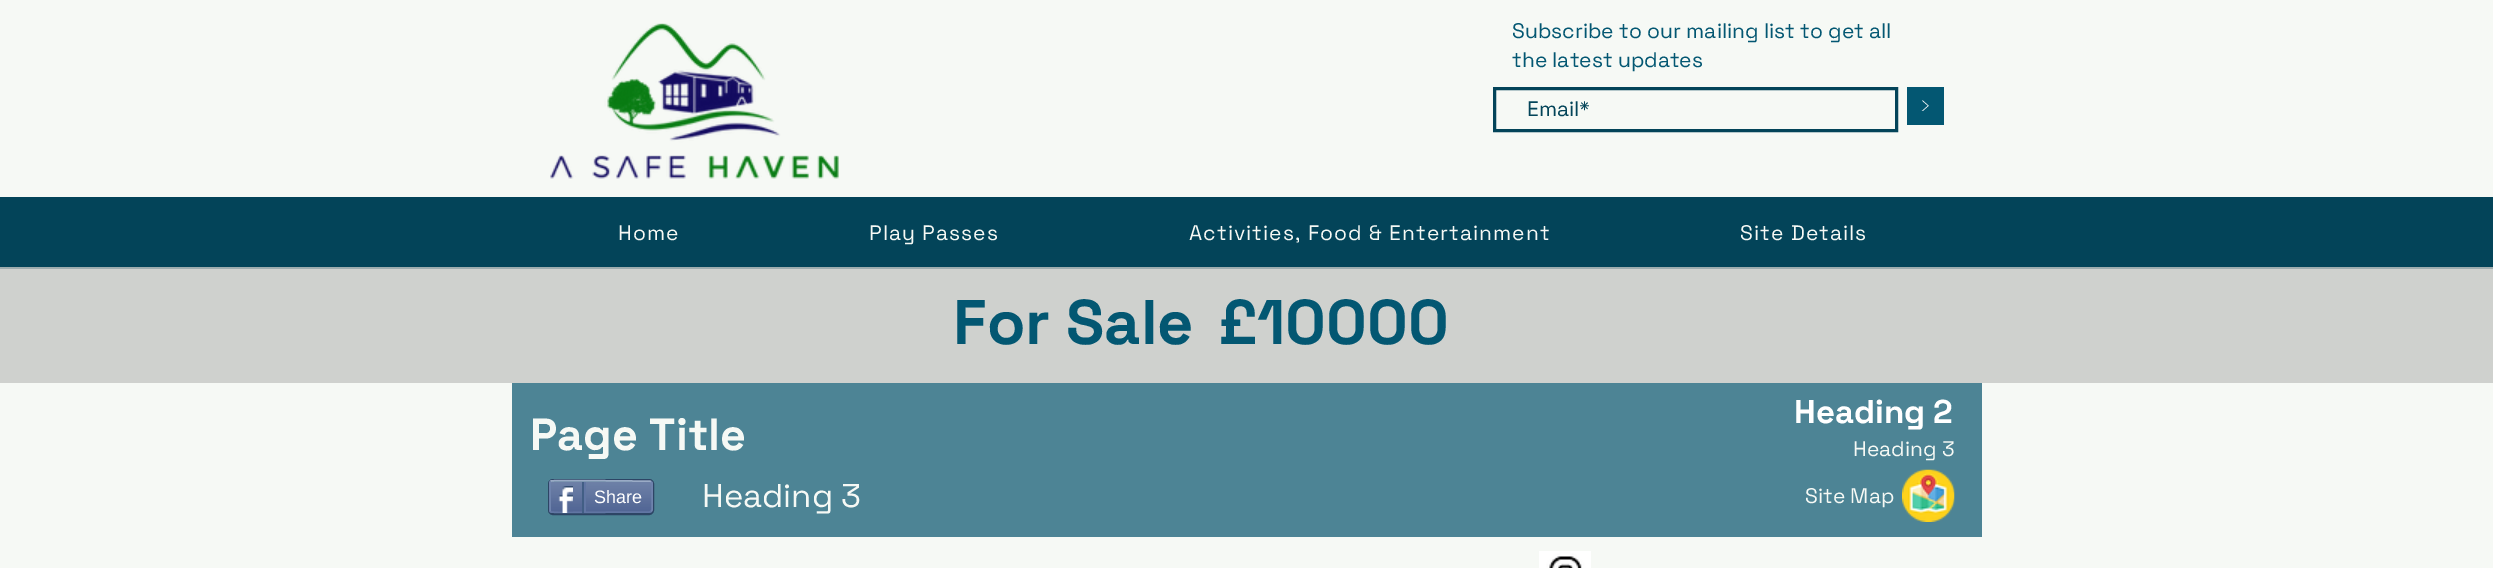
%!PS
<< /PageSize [2493 568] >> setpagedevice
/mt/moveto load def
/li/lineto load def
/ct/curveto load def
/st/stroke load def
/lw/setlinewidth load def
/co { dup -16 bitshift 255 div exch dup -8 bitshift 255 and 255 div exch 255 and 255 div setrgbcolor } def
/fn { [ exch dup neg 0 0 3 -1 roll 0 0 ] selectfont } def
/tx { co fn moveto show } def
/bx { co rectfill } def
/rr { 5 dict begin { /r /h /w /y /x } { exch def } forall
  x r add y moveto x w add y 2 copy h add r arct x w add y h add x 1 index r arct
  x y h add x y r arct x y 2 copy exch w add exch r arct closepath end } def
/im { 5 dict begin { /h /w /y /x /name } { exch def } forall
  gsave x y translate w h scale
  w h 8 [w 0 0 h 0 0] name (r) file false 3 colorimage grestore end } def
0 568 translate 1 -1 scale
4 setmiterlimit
0 0 2493 568 16#F6F9F5 bx
(media/1.raw) 550 23 289 156 im
16#034459 co
3 lw
1494.5 88.5 402 42 rectstroke
1907 87 37 38 16#035772 bx
0 197 2493 70 16#034459 bx
0 267 2493 2 16#9EADAF bx
512 383 1470 154 16#4D8495 bx
16#2D4565 co
2 lw
549 480 104 34 4 rr st
(media/2.raw) 549 481 104 32 im
16#9AABC6 co
1.5 lw
550.5 481.5 mt 551 481 li 552.5 480 625 481 633 481 ct 649.5 481 li 651 481.5 li st
16#6F83AD co
651 481.5 mt 651.5 482 652 482.5 652 483 ct 652 510 li 652 510.5 651.5 511 651 511.5 ct st
16#6176A3 co
651 511.5 mt 649.5 512 li 633 512 li 625 512 552.5 513 551 512 ct 550.5 511.5 li st
16#6F83AD co
550.5 511.5 mt 550 511 550 510.5 550 510 ct 550 483 li 550 482.5 550 482 550.5 481.5 ct st
(media/3.raw) 558 486 15 27 im
582 482 2 31 16#425E85 bx
584 482 2 30 16#6176A3 bx
(media/4.raw) 1902 469 53 53 im
(media/5.raw) 1539 551 52 17 im
0 269 2493 114 16#CFD1CE bx
(Subscribe to our mailing list to get all) 1512 38 /SpaceGrotesk-Regular 21 16#035772 tx
(the latest updates) 1512 67 /SpaceGrotesk-Regular 21 16#035772 tx
(Email*) 1527 116 /SpaceGrotesk-Regular 21 16#034459 tx
(>) 1921 114 /Poppins-ExtraLight 22 16#FFFFFF tx
/SpaceGrotesk-Regular 21 fn
16#F6F9F5 co
618 240 mt 1.05 0 (Home) ashow
869 240 mt 1.05 0 (Play Passes) ashow
1189 240 mt 1.05 0 (Activities, Food & Entertainment) ashow
1740 240 mt 1.05 0 (Site Details) ashow
(For Sale) 953 344 /SpaceGrotesk-Bold 63 16#035772 tx
(£) 1218 344 /SpaceGrotesk-Bold 63 16#035772 tx
(10000) 1257 344 /SpaceGrotesk-Bold 63 16#035772 tx
(Page Title) 530 450 /SpaceGrotesk-Bold 45 16#F6F9F5 tx
(Heading 2) 1794 423 /SpaceGrotesk-Bold 33 16#FFFFFF tx
(Heading 3) 1853 456 /SpaceGrotesk-Regular 21 16#F6F9F5 tx
(Share) 594 503 /LiberationSans-Regular 18 16#FFFFFF tx
(Heading 3) 702 507 /SpaceGrotesk-Regular 33 16#F6F9F5 tx
(Site Map) 1805 503 /SpaceGrotesk-Regular 21 16#F6F9F5 tx
showpage
